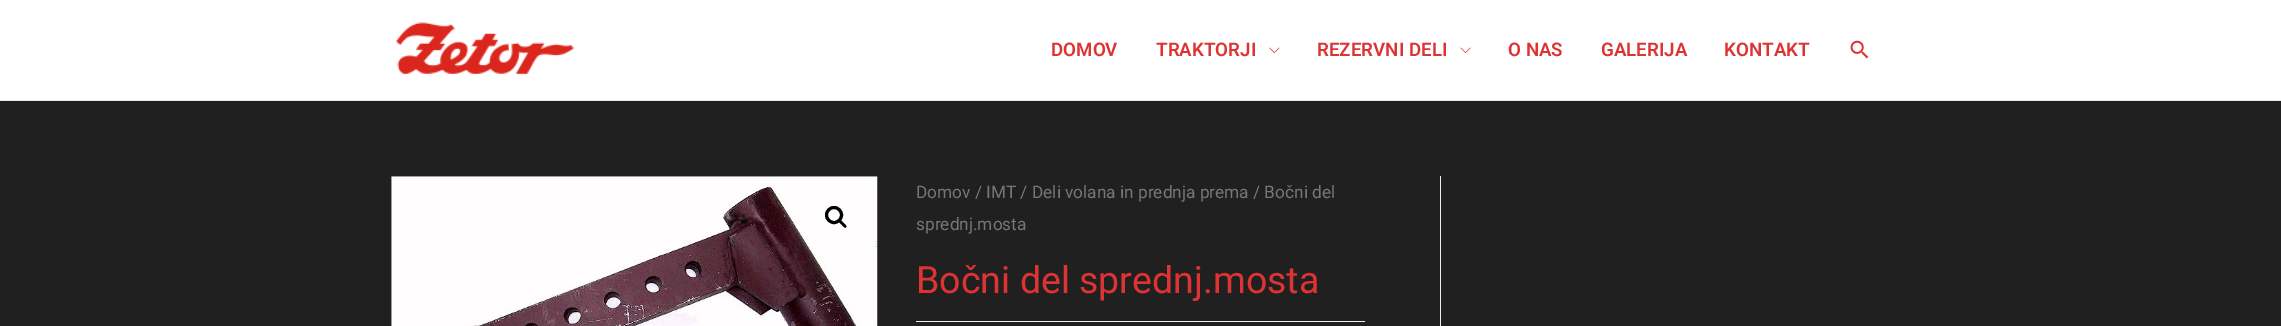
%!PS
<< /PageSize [2281 326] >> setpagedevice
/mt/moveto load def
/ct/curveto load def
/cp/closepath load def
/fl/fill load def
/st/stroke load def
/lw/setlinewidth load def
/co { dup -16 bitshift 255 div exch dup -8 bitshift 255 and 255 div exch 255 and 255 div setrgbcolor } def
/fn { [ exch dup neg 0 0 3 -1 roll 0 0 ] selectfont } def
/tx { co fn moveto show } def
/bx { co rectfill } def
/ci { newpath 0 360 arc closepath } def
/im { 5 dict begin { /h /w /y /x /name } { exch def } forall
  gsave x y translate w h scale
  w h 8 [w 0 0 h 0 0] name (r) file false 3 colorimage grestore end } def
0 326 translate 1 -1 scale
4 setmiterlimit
0 0 2281 326 16#202020 bx
0 0 2281 100 16#FFFFFF bx
0 100 2281 1 16#EAEAEA bx
(media/1.raw) 396 22 178 53 im
(media/2.raw) 1269 47 11 6 im
(media/3.raw) 1460 47 11 6 im
(media/4.raw) 1850 40 19 19 im
1440 176 1 150 16#EEEEEE bx
(media/5.raw) 391 176 487 150 im
16#000000 co
3 lw
834 215 7.5 ci st
839 220 mt 840.5 219 842.5 222 843.5 223 ct 844 223.5 847.5 226 846 227.5 ct 844.5 228.5 842.5 225.5 841.5 224.5 ct 841 224 837.5 221.5 839 220 ct cp fl
916 321 449 1 16#EBEBEB bx
(DOMOV) 1051 56 /Roboto-SemiBold 18.75 16#DD3333 tx
(TRAKTORJI) 1156 56 /Roboto-SemiBold 18.75 16#DD3333 tx
(REZERVNI DELI) 1317 56 /Roboto-SemiBold 18.75 16#DD3333 tx
(O NAS) 1508 56 /Roboto-SemiBold 18.75 16#DD3333 tx
(GALERIJA) 1601 56 /Roboto-SemiBold 18.75 16#DD3333 tx
(KONTAKT) 1724 56 /Roboto-SemiBold 18.75 16#DD3333 tx
(Domov / IMT / Deli volana in prednja prema / Bočni del) 916 198 /Roboto-Regular 17.25 16#777777 tx
(sprednj.mosta) 916 230 /Roboto-Regular 17.25 16#777777 tx
(Bočni del sprednj.mosta) 916 293 /Roboto-Regular 37.5 16#DD3333 tx
showpage
